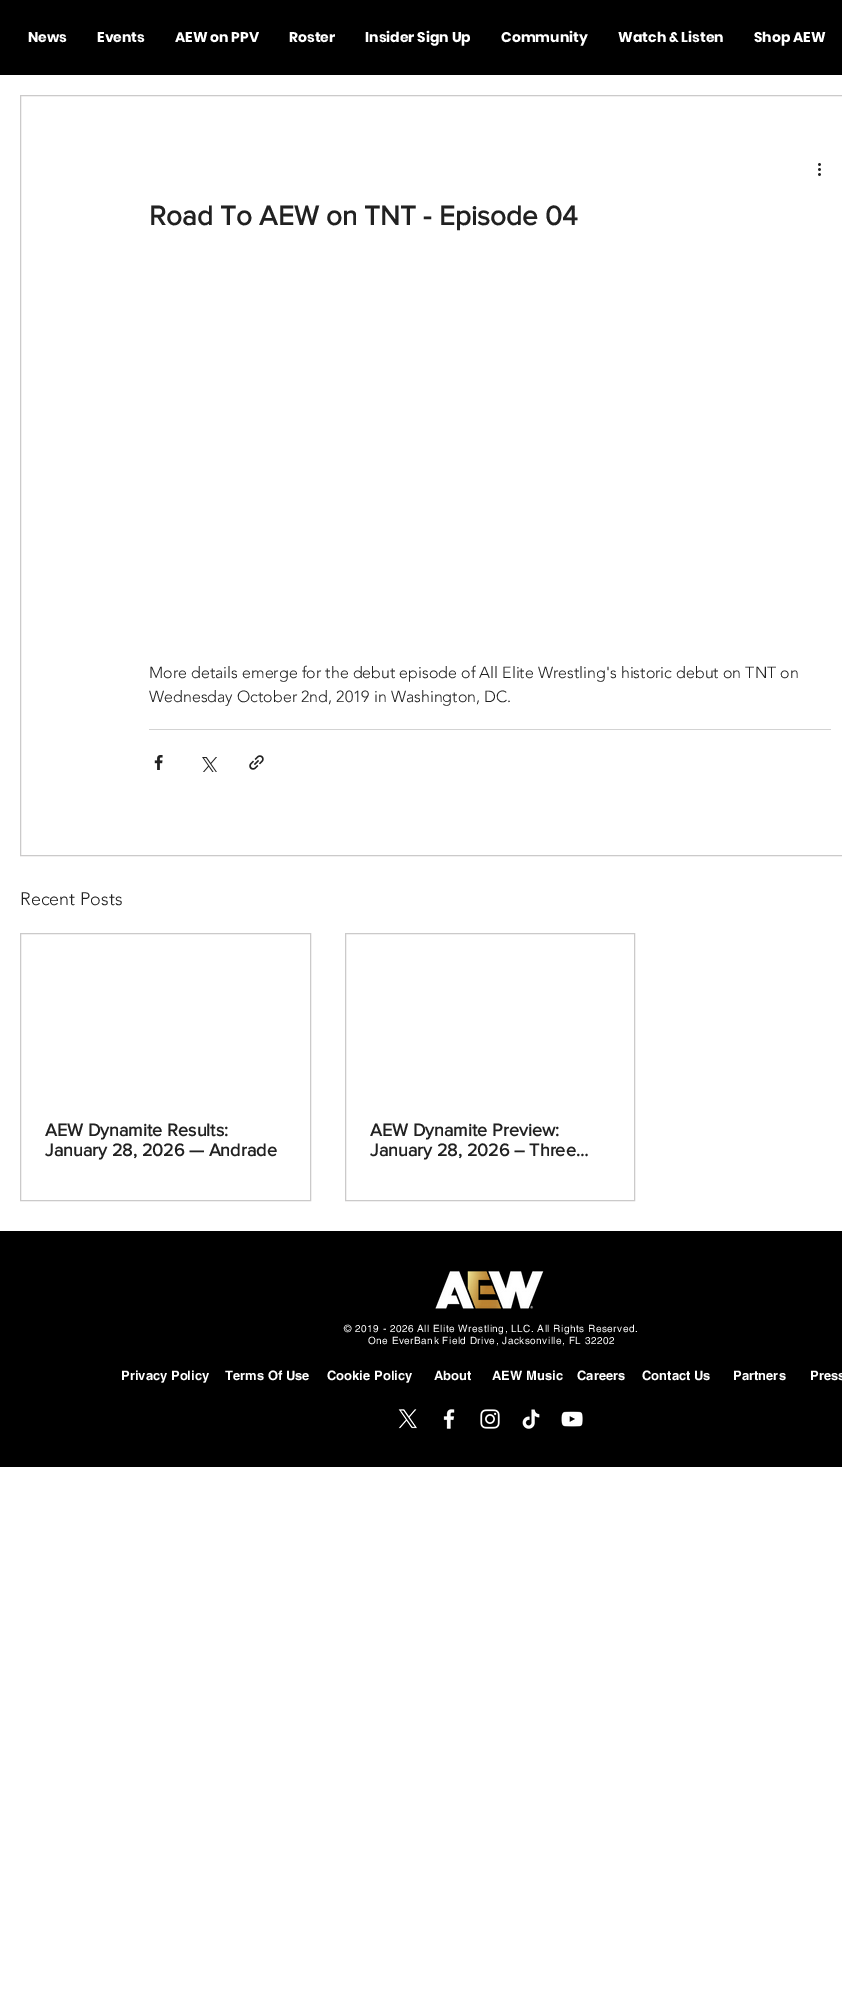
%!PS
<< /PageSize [842 2005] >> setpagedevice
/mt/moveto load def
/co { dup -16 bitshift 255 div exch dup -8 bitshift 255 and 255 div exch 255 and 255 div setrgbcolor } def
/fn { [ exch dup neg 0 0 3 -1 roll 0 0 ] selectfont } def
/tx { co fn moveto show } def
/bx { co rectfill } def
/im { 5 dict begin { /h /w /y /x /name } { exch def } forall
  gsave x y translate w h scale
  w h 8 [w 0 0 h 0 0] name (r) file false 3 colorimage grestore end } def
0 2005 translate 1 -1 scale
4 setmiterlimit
0 0 842 2005 16#FFFFFF bx
0 0 842 75 16#000000 bx
16#CBCACA co
20.5 95.5 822 760 rectstroke
(media/1.raw) 818 163 3 13 im
149 729 682 1 16#D3D3D3 bx
(media/2.raw) 154 755 9 15 im
(media/3.raw) 202 757 15 15 im
(media/4.raw) 249 755 15 15 im
16#CBCACA co
20.5 933.5 290 267 rectstroke
345.5 933.5 289 267 rectstroke
0 1231 842 236 16#000000 bx
(media/5.raw) 435 1271 109 38 im
(media/6.raw) 398 1409 19 20 im
(media/7.raw) 443 1409 12 20 im
(media/8.raw) 480 1409 20 20 im
(media/9.raw) 522 1409 18 20 im
(media/10.raw) 561 1411 22 16 im
(News) 28 42 /Poppins-Bold 14 16#FFFFFF tx
(Events) 97 42 /Poppins-Bold 14 16#FFFFFF tx
(AEW on PPV) 175 42 /Poppins-Bold 14 16#FFFFFF tx
(Roster) 289 42 /Poppins-Bold 14 16#FFFFFF tx
(Insider Sign Up) 365 42 /Poppins-Bold 14 16#FFFFFF tx
(Community) 501 42 /Poppins-Bold 14 16#FFFFFF tx
(Watch & Listen) 618 42 /Poppins-Bold 14 16#FFFFFF tx
(Shop AEW) 754 42 /Poppins-Bold 14 16#FFFFFF tx
(Road To AEW on TNT - Episode 04) 149 225 /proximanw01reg-Bold 28 16#212121 tx
(More details emerge for the debut episode of All Elite Wrestling's historic debut on TNT on) 149 678 /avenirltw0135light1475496-Light 16 16#212121 tx
(Wednesday October 2nd, 2019 in Washington, DC.) 149 702 /avenirltw0135light1475496-Light 16 16#212121 tx
(Recent Posts) 20 905 /avenirltw0135light1475496-Light 18 16#212121 tx
(AEW Dynamite Results:) 45 1136 /proximanw01reg-Bold 18 16#212121 tx
(January 28, 2026 — Andrade) 45 1156 /proximanw01reg-Bold 18 16#212121 tx
(AEW Dynamite Preview:) 370 1136 /proximanw01reg-Bold 18 16#212121 tx
(January 28, 2026 – Three…) 370 1156 /proximanw01reg-Bold 18 16#212121 tx
/helvetica-Regular 10 fn
16#FFFFFF co
344 1332 mt .5 0 (© 2019 - 2026 All Elite Wrestling, LLC. All Rights Reserved.) ashow
368 1344 mt .5 0 (One EverBank Field Drive, Jacksonville, FL 32202) ashow
(Privacy Policy) 121 1380 /helvetica-Bold 13 16#FFFFFF tx
(Terms Of Use) 225 1380 /helvetica-Bold 13 16#FFFFFF tx
(Cookie Policy) 327 1380 /helvetica-Bold 13 16#FFFFFF tx
(About) 434 1380 /helvetica-Bold 13 16#FFFFFF tx
(AEW Music) 492 1380 /helvetica-Bold 13 16#FFFFFF tx
(Careers) 577 1380 /helvetica-Bold 13 16#FFFFFF tx
(Contact Us) 642 1380 /helvetica-Bold 13 16#FFFFFF tx
(Press) 810 1380 /helvetica-Bold 13 16#FFFFFF tx
(Partners) 733 1380 /helvetica-Bold 13 16#FFFFFF tx
showpage
